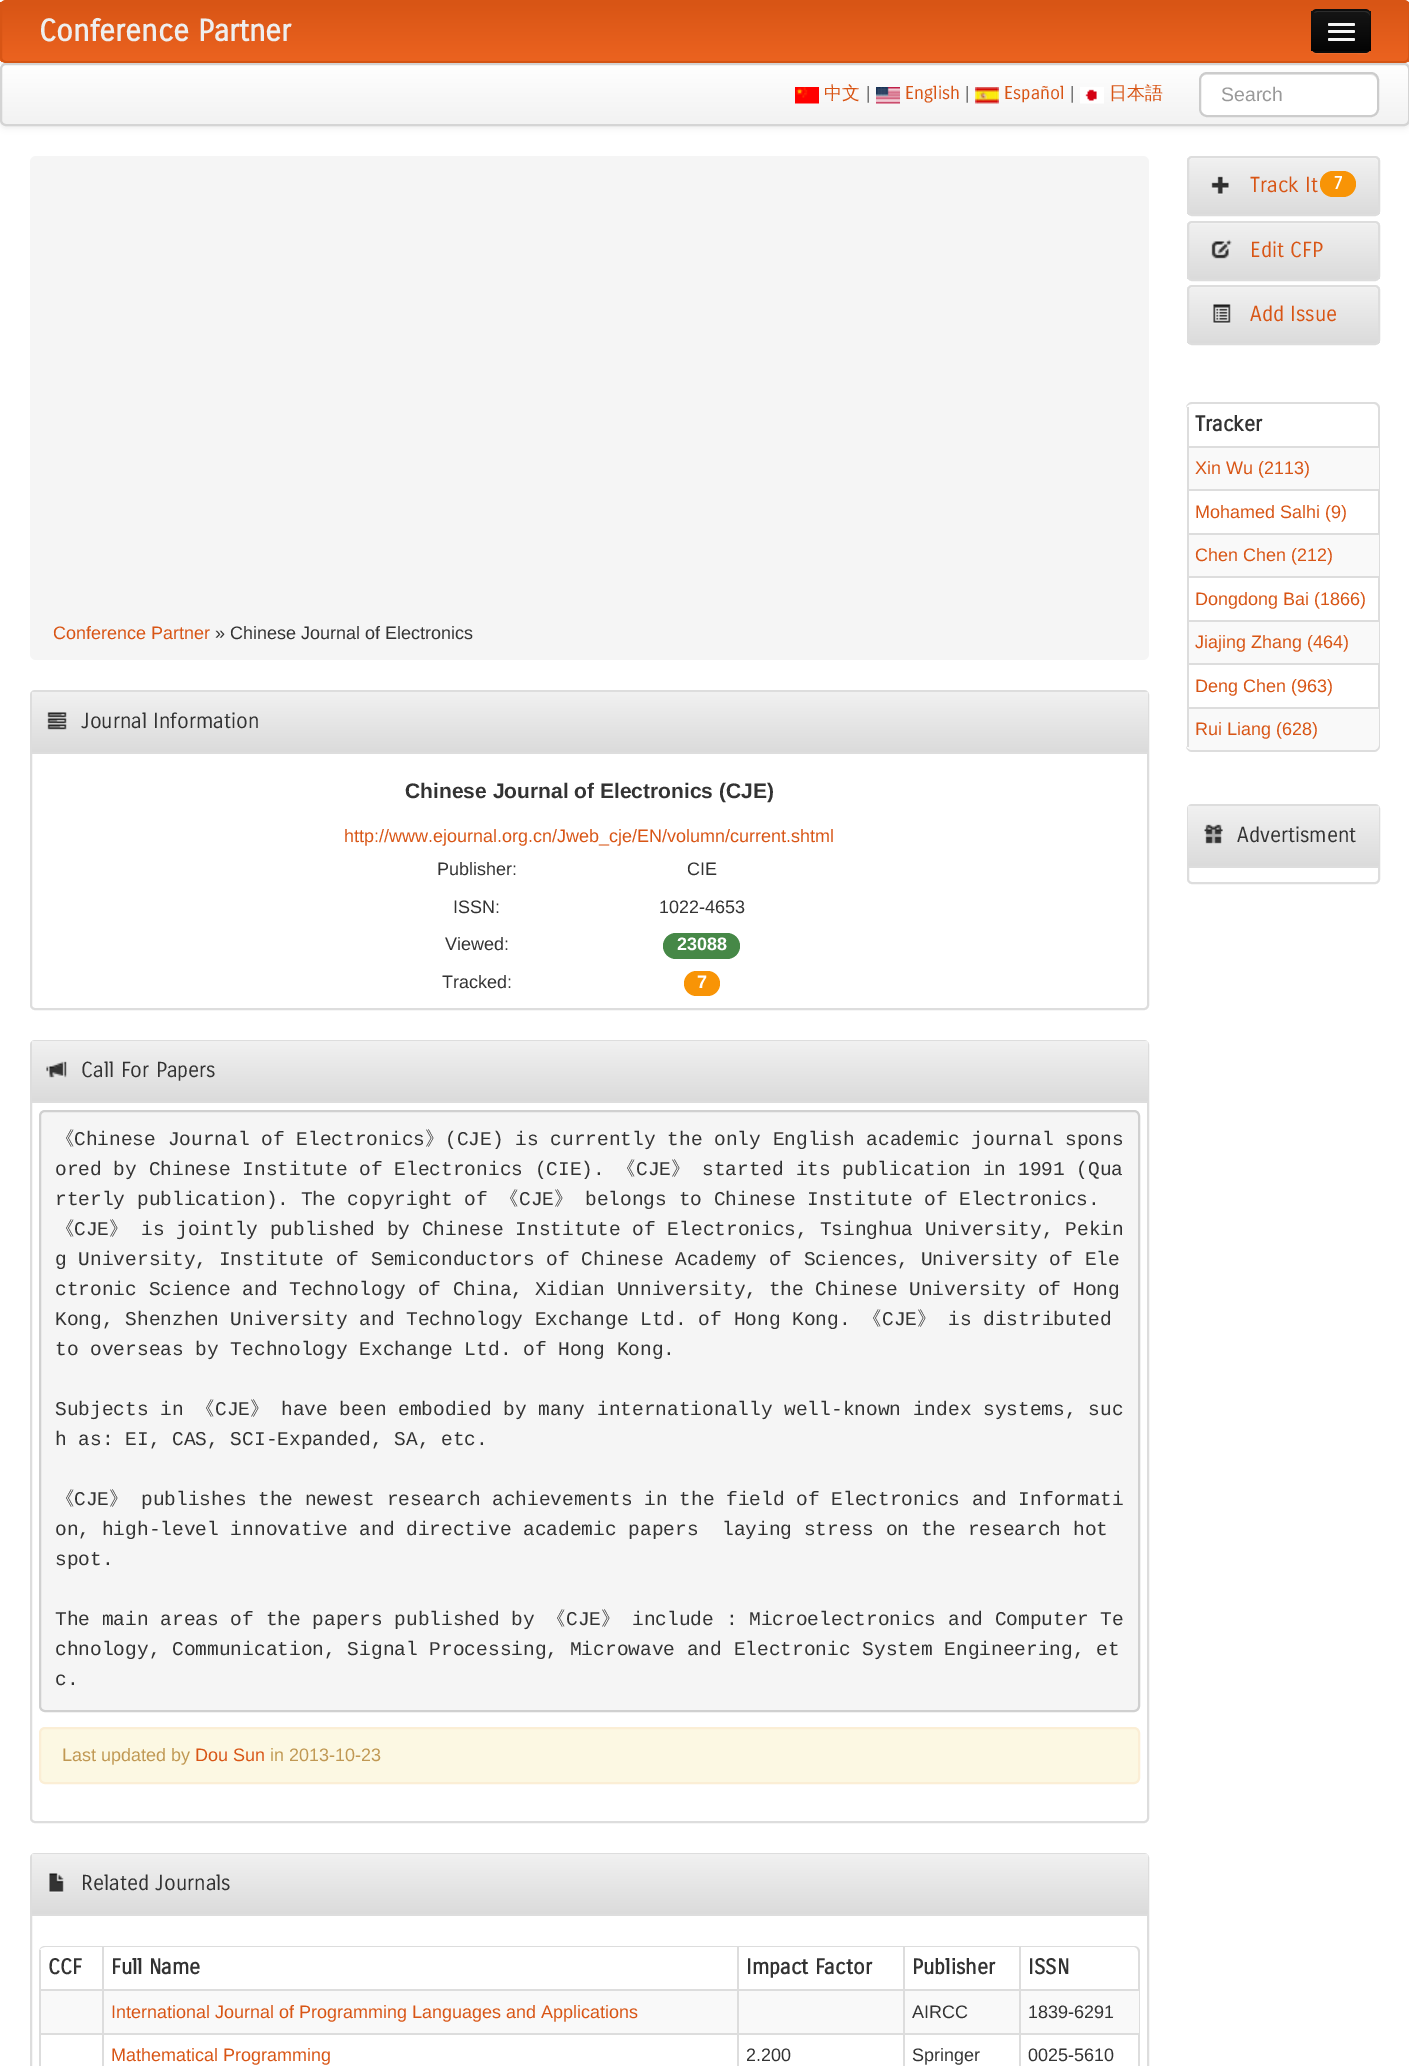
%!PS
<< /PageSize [1409 2066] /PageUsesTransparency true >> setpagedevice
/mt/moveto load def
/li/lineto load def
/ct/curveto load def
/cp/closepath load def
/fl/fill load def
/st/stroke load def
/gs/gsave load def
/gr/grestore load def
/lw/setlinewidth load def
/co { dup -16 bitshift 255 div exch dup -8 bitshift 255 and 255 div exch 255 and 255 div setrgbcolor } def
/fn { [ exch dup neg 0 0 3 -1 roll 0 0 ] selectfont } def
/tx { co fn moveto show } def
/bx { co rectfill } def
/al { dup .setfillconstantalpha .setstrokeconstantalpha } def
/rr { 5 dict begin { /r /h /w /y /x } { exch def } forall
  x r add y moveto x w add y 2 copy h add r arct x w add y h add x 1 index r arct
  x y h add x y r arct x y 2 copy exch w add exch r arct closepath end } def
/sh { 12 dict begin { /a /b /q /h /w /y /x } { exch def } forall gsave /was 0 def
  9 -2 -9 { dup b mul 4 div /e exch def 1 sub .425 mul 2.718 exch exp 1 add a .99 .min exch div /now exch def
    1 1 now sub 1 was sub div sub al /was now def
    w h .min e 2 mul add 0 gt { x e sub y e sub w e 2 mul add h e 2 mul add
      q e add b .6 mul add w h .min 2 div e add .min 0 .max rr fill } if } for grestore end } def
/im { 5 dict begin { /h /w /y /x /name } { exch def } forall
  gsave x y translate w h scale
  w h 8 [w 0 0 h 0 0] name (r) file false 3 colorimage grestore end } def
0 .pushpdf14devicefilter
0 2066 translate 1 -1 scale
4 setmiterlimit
0 0 1409 2066 16#FFFFFF bx
16#000000 co
0 2 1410 63 6 3 .07 sh
gs
0 0 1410 63 6 rr clip newpath
gs 0 2 mt 1409 2 li 1409 62 li 0 62 li cp clip newpath
<< /ShadingType 2 /ColorSpace /DeviceRGB /Coords [705 1.5 705 62] /Extend [true true] /Function << /FunctionType 2 /Domain [0 1] /C0 [.847 .333 .082] /C1 [.925 .388 .125] /N 1 >> >> shfill gr
gr
16#D85515 co
2 lw
1 1 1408 61 5 rr st
16#EB6D2F co
1311 46 mt 1311 56 1318 54 1325 54 ct 1357 54 li 1364 54 1371 56 1371 46 ct 1371 50 1368 52 1365 52 ct 1317 52 li 1314 52 1311 50 1311 46 ct cp fl
16#0E0E0E co
1311 9 60 44 6 rr fl
gs
1311 9 60 44 6 rr clip newpath
gs 1311 11 mt 1371 11 li 1371 51 li 1311 51 li cp clip newpath
<< /ShadingType 2 /ColorSpace /DeviceRGB /Coords [1341 10 1341 51] /Extend [true true] /Function << /FunctionType 2 /Domain [0 1] /C0 [.082 .082 .082] /C1 [.016 .016 .016] /N 1 >> >> shfill gr
gr
16#2C2C2C co
1317 12 mt 1365 12 li 1367 12 1370 14 1370 16 ct 1370 13 1368 11 1365 11 ct 1318 11 li 1316 11 1315 12 1314 13 ct cp fl
0.25 al
16#000000 co
1.5 lw
1368.5 50 mt 1367.5 51 1366.5 52 1365 52 ct 1317 52 li 1315.5 52 1314.5 51 1313.5 50 ct st
0.1 al
1313.5 50 mt 1312.5 49 1312 48 1312 46.5 ct 1312 15 li 1312 13.5 1312.5 12.5 1313.5 11.5 ct 1314.5 10.5 1315.5 10 1317 10 ct 1365 10 li 1366.5 10 1367.5 10.5 1368.5 11.5 ct 1369.5 12.5 1370 13.5 1370 15 ct 1370 46.5 li 1370 48 1369.5 49 1368.5 50 ct st
1 al
16#0B0B0B co
1328 25 mt 1327.5 28 1333 27 1333.5 27 ct 1353.5 27 li 1355 27 1355.5 25 1354.5 24.5 ct 1353.5 25.5 li 1352 26 1328.5 25.5 1328 25 ct cp fl
16#F5F5F5 co
1328 23 27 3 1.5 rr fl
16#080808 co
1328 33 mt 1326.5 36 1333.5 35 1333.5 35 ct 1354 35 li 1355 34.5 1355.5 33 1354.5 32 ct 1353 33 li 1351 33.5 1329 33.5 1328 33 ct cp fl
16#F5F5F5 co
1328 30 27 3 1.5 rr fl
1328 38 27 3 1.5 rr fl
16#000000 co
0 65 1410 63 6 3 .07 sh
gs
0 63 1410 63 6 rr clip newpath
gs 0 65 mt 1409 65 li 1409 125 li 0 125 li cp clip newpath
<< /ShadingType 2 /ColorSpace /DeviceRGB /Coords [705 64 705 125] /Extend [true true] /Function << /FunctionType 2 /Domain [0 1] /C0 [1 1 1] /C1 [.949 .949 .949] /N 1 >> >> shfill gr
gr
16#D4D4D4 co
2 lw
1 64 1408 61 5 rr st
(media/1.raw) 795 87 24 17 im
(media/2.raw) 876 87 24 17 im
(media/3.raw) 975 87 24 17 im
(media/4.raw) 1080 87 24 17 im
16#FFFFFF co
1199 72 180 45 8 rr fl
16#ECECEC co
1206 75 mt 1371 75 li 1374 75 1377 78 1377 81 ct 1377 80 li 1377 77 1374 74 1371 74 ct 1206 74 li 1203 74 1200 77 1200 80 ct 1200 81 li 1200 78 1203 75 1206 75 ct cp fl
16#CCCCCC co
1200 73 178 43 7 rr st
gs
1187 156 193 60 5 rr clip newpath
gs 1187 158 mt 1380 158 li 1380 215 li 1187 215 li cp clip newpath
<< /ShadingType 2 /ColorSpace /DeviceRGB /Coords [1283 158 1283 215] /Extend [true true] /Function << /FunctionType 2 /Domain [0 1] /C0 [.945 .945 .945] /C1 [.859 .859 .859] /N 1 >> >> shfill gr
gr
16#F9F9F9 co
1191 159 mt 1376 159 li 1377 159 1378 160 1378 162 ct 1378 214 li 1379 214 1379 213 1379 212 ct 1379 161 li 1379 159 1378 158 1376 158 ct 1191 158 li 1189 158 1188 159 1188 161 ct 1188 162 li 1188 160 1189 159 1191 159 ct cp fl
16#DDDDDD co
1188 157 191 58 4 rr st
(media/5.raw) 1211 176 18 19 im
16#F89406 co
1320 171 36 26 13 rr fl
gs
1187 221 193 60 5 rr clip newpath
gs 1187 222 mt 1380 222 li 1380 279 li 1187 279 li cp clip newpath
<< /ShadingType 2 /ColorSpace /DeviceRGB /Coords [1283 222 1283 279] /Extend [true true] /Function << /FunctionType 2 /Domain [0 1] /C0 [.945 .945 .945] /C1 [.859 .859 .859] /N 1 >> >> shfill gr
gr
16#F9F9F9 co
1191 224 mt 1376 224 li 1377 224 1378 225 1378 226 ct 1378 278 li 1379 278 1379 277 1379 276 ct 1379 225 li 1379 223 1378 222 1376 222 ct 1191 222 li 1189 222 1188 223 1188 225 ct 1188 226 li 1188 225 1189 224 1191 224 ct cp fl
16#DDDDDD co
1188 222 191 58 4 rr st
(media/6.raw) 1211 239 21 20 im
gs
1187 285 193 60 5 rr clip newpath
gs 1187 287 mt 1380 287 li 1380 344 li 1187 344 li cp clip newpath
<< /ShadingType 2 /ColorSpace /DeviceRGB /Coords [1283 287 1283 344] /Extend [true true] /Function << /FunctionType 2 /Domain [0 1] /C0 [.945 .945 .945] /C1 [.859 .859 .859] /N 1 >> >> shfill gr
gr
16#F9F9F9 co
1191 288 mt 1376 288 li 1377 288 1378 289 1378 291 ct 1378 343 li 1379 343 1379 342 1379 341 ct 1379 290 li 1379 288 1378 287 1376 287 ct 1191 287 li 1189 287 1188 288 1188 290 ct 1188 291 li 1188 289 1189 288 1191 288 ct cp fl
16#DDDDDD co
1188 286 191 58 4 rr st
(media/7.raw) 1213 304 18 20 im
1192 402 mt 1374 402 li 1377 402 1380 405 1380 408 ct 1380 746 li 1380 749 1377 752 1374 752 ct 1192 752 li 1189 752 1186 749 1186 746 ct 1186 408 li 1186 405 1189 402 1192 402 ct cp 1192 404 mt 1374 404 li 1376 404 1378 406 1378 408 ct 1378 746 li 1378 748 1376 750 1374 750 ct 1192 750 li 1189 750 1186 748 1186 746 ct 1186 408 li 1186 406 1189 404 1192 404 ct cp eofill
1187 407 2 39 16#DDDDDD bx
1189 448 190 41 16#F9F9F9 bx
1187 446 192 2 16#DDDDDD bx
1187 446 2 43 16#DDDDDD bx
1187 489 192 2 16#DDDDDD bx
1187 489 2 44 16#DDDDDD bx
1189 535 190 41 16#F9F9F9 bx
1187 533 192 2 16#DDDDDD bx
1187 533 2 43 16#DDDDDD bx
1187 576 192 2 16#DDDDDD bx
1187 576 2 44 16#DDDDDD bx
1189 622 190 41 16#F9F9F9 bx
1187 620 192 2 16#DDDDDD bx
1187 620 2 43 16#DDDDDD bx
1187 663 192 2 16#DDDDDD bx
1187 663 2 44 16#DDDDDD bx
16#F9F9F9 co
1187 707 mt 1379 707 li 1379 744 li 1379 747.5 1376.5 750 1373 750 ct 1193 750 li 1189.5 750 1187 747.5 1187 744 ct cp fl
1187 707 192 2 16#DDDDDD bx
1187 707 2 40 16#DDDDDD bx
1188 805 191 78 4 rr st
gs 1188 806 mt 1379 806 li 1379 866 li 1188 866 li cp clip newpath
<< /ShadingType 2 /ColorSpace /DeviceRGB /Coords [1283 806 1283 866] /Extend [true true] /Function << /FunctionType 2 /Domain [0 1] /C0 [.945 .945 .945] /C1 [.859 .859 .859] /N 1 >> >> shfill gr
1188 866 191 2 16#DDDDDD bx
(media/8.raw) 1204 824 19 20 im
16#F5F5F5 co
30 156 1119 504 6 rr fl
16#DDDDDD co
31 691 1117 318 4 rr st
gs 32 692 mt 1148 692 li 1148 752 li 32 752 li cp clip newpath
<< /ShadingType 2 /ColorSpace /DeviceRGB /Coords [590 691 590 752] /Extend [true true] /Function << /FunctionType 2 /Domain [0 1] /C0 [.945 .945 .945] /C1 [.859 .859 .859] /N 1 >> >> shfill gr
32 752 1116 2 16#DDDDDD bx
(media/9.raw) 47 712 20 18 im
16#468847 co
663 933 77 26 13 rr fl
16#F89406 co
684 971 36 25 12.5 rr fl
16#DDDDDD co
31 1041 1117 781 4 rr st
gs 32 1041 mt 1148 1041 li 1148 1101 li 32 1101 li cp clip newpath
<< /ShadingType 2 /ColorSpace /DeviceRGB /Coords [590 1041 590 1101] /Extend [true true] /Function << /FunctionType 2 /Domain [0 1] /C0 [.945 .945 .945] /C1 [.859 .859 .859] /N 1 >> >> shfill gr
32 1101 1116 2 16#DDDDDD bx
(media/10.raw) 46 1061 21 17 im
16#F5F5F5 co
40 1111 1099 600 5 rr gs fl gr
16#D0D0D0 co
st
16#FCF8E3 co
40 1728 1099 55 5 rr gs fl gr
16#FBEED5 co
st
16#DDDDDD co
31 1854 1117 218 4 rr st
gs 32 1854 mt 1148 1854 li 1148 1914 li 32 1914 li cp clip newpath
<< /ShadingType 2 /ColorSpace /DeviceRGB /Coords [590 1854 590 1914] /Extend [true true] /Function << /FunctionType 2 /Domain [0 1] /C0 [.945 .945 .945] /C1 [.859 .859 .859] /N 1 >> >> shfill gr
32 1914 1116 2 16#DDDDDD bx
(media/11.raw) 49 1873 15 20 im
45 1946 mt 1134 1946 li 1137 1946 1140 1948 1140 1952 ct 1140 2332 li 1140 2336 1137 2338 1134 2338 ct 45 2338 li 42 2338 39 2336 39 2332 ct 39 1952 li 39 1948 42 1946 45 1946 ct cp 45 1947 mt 1134 1947 li 1136 1947 1138 1949 1138 1952 ct 1138 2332 li 1138 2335 1136 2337 1134 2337 ct 45 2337 li 42 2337 39 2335 39 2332 ct 39 1952 li 39 1949 42 1947 45 1947 ct cp eofill
39 1950 2 39 16#DDDDDD bx
102 1947 2 42 16#DDDDDD bx
737 1947 2 42 16#DDDDDD bx
903 1947 2 42 16#DDDDDD bx
1019 1947 2 42 16#DDDDDD bx
41 1991 61 42 16#F9F9F9 bx
39 1989 1100 2 16#DDDDDD bx
39 1989 2 44 16#DDDDDD bx
104 1991 633 42 16#F9F9F9 bx
102 1989 2 44 16#DDDDDD bx
739 1991 164 42 16#F9F9F9 bx
737 1989 2 44 16#DDDDDD bx
905 1991 114 42 16#F9F9F9 bx
903 1989 2 44 16#DDDDDD bx
1021 1991 118 42 16#F9F9F9 bx
1019 1989 2 44 16#DDDDDD bx
39 2033 1100 2 16#DDDDDD bx
39 2033 2 33 16#DDDDDD bx
102 2033 2 33 16#DDDDDD bx
737 2033 2 33 16#DDDDDD bx
903 2033 2 33 16#DDDDDD bx
1019 2033 2 33 16#DDDDDD bx
(Conference Partner) 39 41 /CarroisGothic-Bold 30 16#EEEEEE tx
(中文) 824 99 /WenQuanYiZenHei-Medium 18 16#D85515 tx
(|) 866 99 /LiberationSans-Regular 18 16#777777 tx
(English) 905 99 /CarroisGothic-Regular 18 16#D85515 tx
(|) 965 99 /LiberationSans-Regular 18 16#777777 tx
(Español) 1004 99 /CarroisGothic-Regular 18 16#D85515 tx
(|) 1070 99 /LiberationSans-Regular 18 16#777777 tx
(日本語) 1109 99 /WenQuanYiZenHei-Medium 18 16#D85515 tx
(Search) 1221 101 /LiberationSans-Regular 19.5 16#999999 tx
(Track It) 1250 192 /CarroisGothic-Regular 21 16#D85515 tx
(7) 1333 189 /CarroisGothic-Bold 18 16#FFFFFF tx
(Edit CFP) 1250 257 /CarroisGothic-Regular 21 16#D85515 tx
(Add Issue) 1250 321 /CarroisGothic-Regular 21 16#D85515 tx
(Tracker) 1195 431 /CarroisGothic-Bold 21 16#333333 tx
(Xin Wu \(2113\)) 1195 474 /LiberationSans-Regular 18 16#D85515 tx
(Mohamed Salhi \(9\)) 1195 518 /LiberationSans-Regular 18 16#D85515 tx
(Chen Chen \(212\)) 1195 561 /LiberationSans-Regular 18 16#D85515 tx
(Dongdong Bai \(1866\)) 1195 605 /LiberationSans-Regular 18 16#D85515 tx
(Jiajing Zhang \(464\)) 1195 648 /LiberationSans-Regular 18 16#D85515 tx
(Deng Chen \(963\)) 1195 692 /LiberationSans-Regular 18 16#D85515 tx
(Rui Liang \(628\)) 1195 735 /LiberationSans-Regular 18 16#D85515 tx
(Advertisment) 1237 842 /CarroisGothic-Regular 21 16#333333 tx
(Conference Partner) 53 639 /LiberationSans-Regular 18 16#D85515 tx
(» Chinese Journal of Electronics) 215 639 /LiberationSans-Regular 18 16#333333 tx
(Journal Information) 81 728 /CarroisGothic-Regular 21 16#333333 tx
(Chinese Journal of Electronics \(CJE\)) 405 798 /LiberationSans-Bold 21 16#333333 tx
(http://www.ejournal.org.cn/Jweb_cje/EN/volumn/current.shtml) 344 842 /LiberationSans-Regular 18 16#D85515 tx
(Publisher:) 437 875 /LiberationSans-Regular 18 16#333333 tx
(CIE) 687 875 /LiberationSans-Regular 18 16#333333 tx
(ISSN:) 453 913 /LiberationSans-Regular 18 16#333333 tx
(1022-4653) 659 913 /LiberationSans-Regular 18 16#333333 tx
(Viewed:) 445 950 /LiberationSans-Regular 18 16#333333 tx
(23088) 677 950 /LiberationSans-Bold 18 16#FFFFFF tx
(Tracked:) 442 988 /LiberationSans-Regular 18 16#333333 tx
(7) 697 988 /LiberationSans-Bold 18 16#FFFFFF tx
(Call For Papers) 81 1077 /CarroisGothic-Regular 21 16#333333 tx
(《) 55 1145 /WenQuanYiZenHei-Medium 19.5 16#333333 tx
(Chinese Journal of Electronics) 74 1145 /LiberationMono-Regular 19.5 16#333333 tx
(》) 425 1145 /WenQuanYiZenHei-Medium 19.5 16#333333 tx
(\(CJE\) is currently the only English academic journal spons) 445 1145 /LiberationMono-Regular 19.5 16#333333 tx
(ored by Chinese Institute of Electronics \(CIE\).) 55 1175 /LiberationMono-Regular 19.5 16#333333 tx
(《) 616 1175 /WenQuanYiZenHei-Medium 19.5 16#333333 tx
(CJE) 636 1175 /LiberationMono-Regular 19.5 16#333333 tx
(》) 671 1175 /WenQuanYiZenHei-Medium 19.5 16#333333 tx
(started its publication in 1991 \(Qua) 702 1175 /LiberationMono-Regular 19.5 16#333333 tx
(rterly publication\). The copyright of) 55 1205 /LiberationMono-Regular 19.5 16#333333 tx
(《) 499 1205 /WenQuanYiZenHei-Medium 19.5 16#333333 tx
(CJE) 519 1205 /LiberationMono-Regular 19.5 16#333333 tx
(》) 554 1205 /WenQuanYiZenHei-Medium 19.5 16#333333 tx
(belongs to Chinese Institute of Electronics.) 585 1205 /LiberationMono-Regular 19.5 16#333333 tx
(《) 55 1235 /WenQuanYiZenHei-Medium 19.5 16#333333 tx
(CJE) 74 1235 /LiberationMono-Regular 19.5 16#333333 tx
(》) 109 1235 /WenQuanYiZenHei-Medium 19.5 16#333333 tx
(is jointly published by Chinese Institute of Electronics, Tsinghua University, Pekin) 141 1235 /LiberationMono-Regular 19.5 16#333333 tx
(g University, Institute of Semiconductors of Chinese Academy of Sciences, University of Ele) 55 1265 /LiberationMono-Regular 19.5 16#333333 tx
(ctronic Science and Technology of China, Xidian Unniversity, the Chinese University of Hong) 55 1295 /LiberationMono-Regular 19.5 16#333333 tx
(Kong, Shenzhen University and Technology Exchange Ltd. of Hong Kong.) 55 1325 /LiberationMono-Regular 19.5 16#333333 tx
(《) 862 1325 /WenQuanYiZenHei-Medium 19.5 16#333333 tx
(CJE) 882 1325 /LiberationMono-Regular 19.5 16#333333 tx
(》) 917 1325 /WenQuanYiZenHei-Medium 19.5 16#333333 tx
(is distributed) 948 1325 /LiberationMono-Regular 19.5 16#333333 tx
(to overseas by Technology Exchange Ltd. of Hong Kong.) 55 1355 /LiberationMono-Regular 19.5 16#333333 tx
(Subjects in) 55 1415 /LiberationMono-Regular 19.5 16#333333 tx
(《) 195 1415 /WenQuanYiZenHei-Medium 19.5 16#333333 tx
(CJE) 215 1415 /LiberationMono-Regular 19.5 16#333333 tx
(》) 250 1415 /WenQuanYiZenHei-Medium 19.5 16#333333 tx
(have been embodied by many internationally well-known index systems, suc) 281 1415 /LiberationMono-Regular 19.5 16#333333 tx
(h as: EI, CAS, SCI-Expanded, SA, etc.) 55 1445 /LiberationMono-Regular 19.5 16#333333 tx
(《) 55 1505 /WenQuanYiZenHei-Medium 19.5 16#333333 tx
(CJE) 74 1505 /LiberationMono-Regular 19.5 16#333333 tx
(》) 109 1505 /WenQuanYiZenHei-Medium 19.5 16#333333 tx
(publishes the newest research achievements in the field of Electronics and Informati) 141 1505 /LiberationMono-Regular 19.5 16#333333 tx
(on, high-level innovative and directive academic papers  laying stress on the research hot) 55 1535 /LiberationMono-Regular 19.5 16#333333 tx
(spot.) 55 1565 /LiberationMono-Regular 19.5 16#333333 tx
(The main areas of the papers published by) 55 1625 /LiberationMono-Regular 19.5 16#333333 tx
(《) 546 1625 /WenQuanYiZenHei-Medium 19.5 16#333333 tx
(CJE) 566 1625 /LiberationMono-Regular 19.5 16#333333 tx
(》) 601 1625 /WenQuanYiZenHei-Medium 19.5 16#333333 tx
(include : Microelectronics and Computer Te) 632 1625 /LiberationMono-Regular 19.5 16#333333 tx
(chnology, Communication, Signal Processing, Microwave and Electronic System Engineering, et) 55 1655 /LiberationMono-Regular 19.5 16#333333 tx
(c.) 55 1685 /LiberationMono-Regular 19.5 16#333333 tx
(Last updated by) 62 1761 /LiberationSans-Regular 18 16#C09853 tx
(Dou Sun) 195 1761 /LiberationSans-Regular 18 16#D85515 tx
(in 2013-10-23) 270 1761 /LiberationSans-Regular 18 16#C09853 tx
(Related Journals) 81 1890 /CarroisGothic-Regular 21 16#333333 tx
(CCF) 48 1974 /CarroisGothic-Bold 21 16#333333 tx
(Full Name) 111 1974 /CarroisGothic-Bold 21 16#333333 tx
(Impact Factor) 746 1974 /CarroisGothic-Bold 21 16#333333 tx
(Publisher) 912 1974 /CarroisGothic-Bold 21 16#333333 tx
(ISSN) 1028 1974 /CarroisGothic-Bold 21 16#333333 tx
(International Journal of Programming Languages and Applications) 111 2018 /LiberationSans-Regular 18 16#D85515 tx
(AIRCC) 912 2018 /LiberationSans-Regular 18 16#333333 tx
(1839-6291) 1028 2018 /LiberationSans-Regular 18 16#333333 tx
(Mathematical Programming) 111 2061 /LiberationSans-Regular 18 16#D85515 tx
(2.200) 746 2061 /LiberationSans-Regular 18 16#333333 tx
(Springer) 912 2061 /LiberationSans-Regular 18 16#333333 tx
(0025-5610) 1028 2061 /LiberationSans-Regular 18 16#333333 tx
.poppdf14devicefilter showpage
